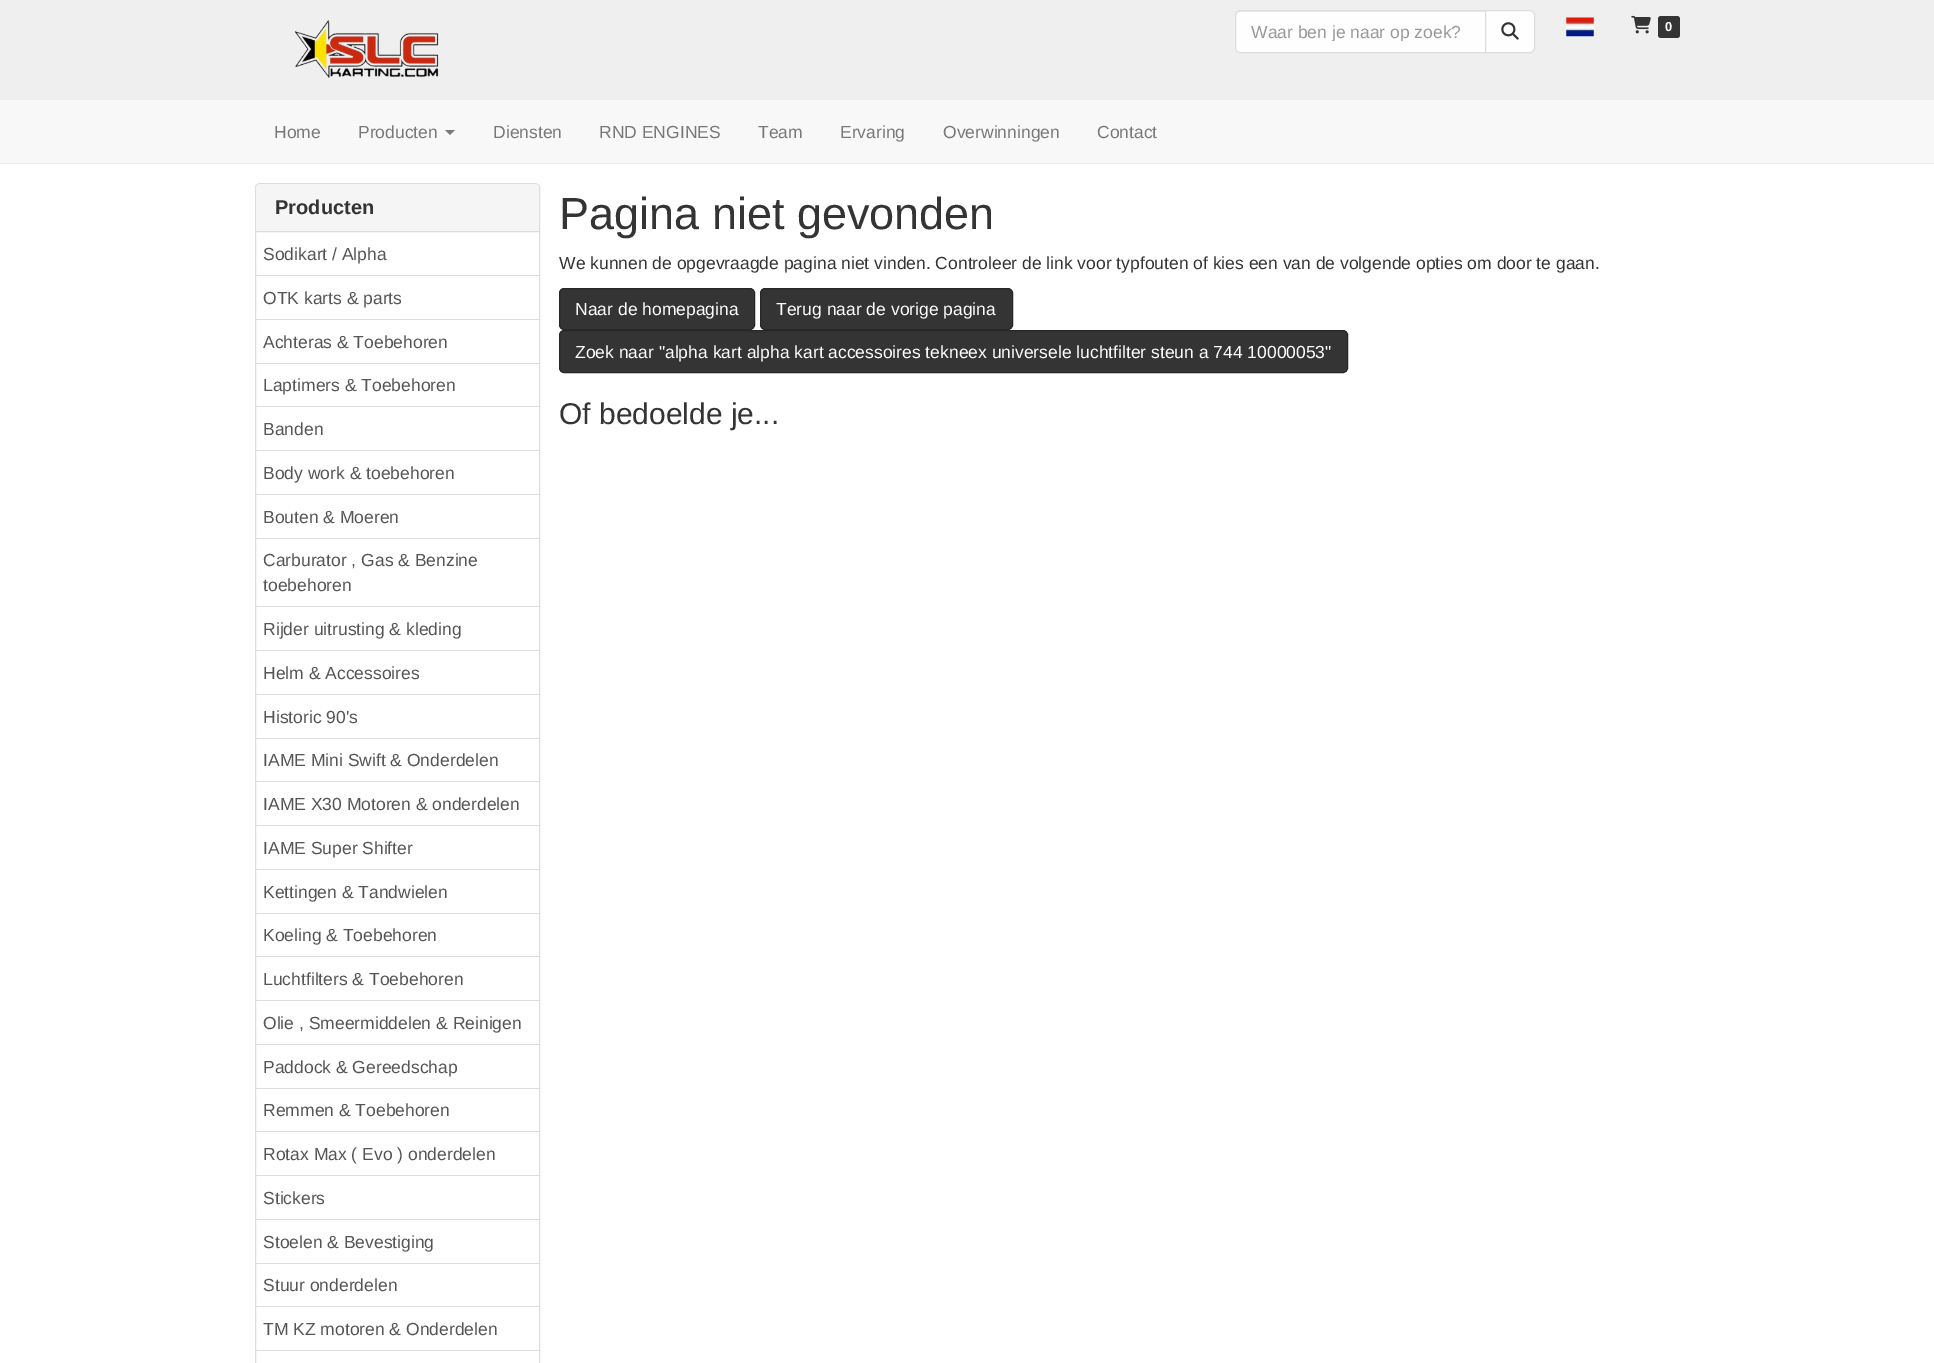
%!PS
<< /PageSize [1934 1363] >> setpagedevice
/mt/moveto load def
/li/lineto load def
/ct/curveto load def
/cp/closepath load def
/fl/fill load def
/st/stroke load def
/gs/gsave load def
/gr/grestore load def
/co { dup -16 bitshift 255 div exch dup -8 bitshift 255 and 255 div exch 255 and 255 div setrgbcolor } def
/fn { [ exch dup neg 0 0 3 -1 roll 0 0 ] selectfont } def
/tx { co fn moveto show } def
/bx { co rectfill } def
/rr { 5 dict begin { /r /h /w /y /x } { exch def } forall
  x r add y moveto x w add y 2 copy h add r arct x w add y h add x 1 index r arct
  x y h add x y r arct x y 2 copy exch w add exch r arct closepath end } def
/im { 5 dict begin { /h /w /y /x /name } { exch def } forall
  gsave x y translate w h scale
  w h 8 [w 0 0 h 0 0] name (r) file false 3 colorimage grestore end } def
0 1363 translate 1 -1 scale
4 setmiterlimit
0 0 1934 1363 16#FFFFFF bx
0 0 1934 100 16#EFEFEF bx
(media/1.raw) 294 20 145 58 im
16#FEFEFE co
1240 10 mt 1486 10 li 1486 53 li 1240 53 li 1237 53 1235 51 1235 48 ct 1235 15 li 1235 12 1237 10 1240 10 ct cp fl
16#EBEBEB co
1240 12 mt 1485 12 li 1485 11 li 1240 11 li 1238 11 1236 13 1236 15 ct 1236 16 li 1236 14 1238 12 1240 12 ct cp fl
16#DDDDDD co
1240 10.5 mt 1485.5 10.5 li 1485.5 52.5 li 1240 52.5 li 1237.5 52.5 1235.5 50.5 1235.5 48 ct 1235.5 15 li 1235.5 12.5 1237.5 10.5 1240 10.5 ct cp st
16#FEFEFE co
1485.5 10.5 mt 1530 10.5 li 1532.5 10.5 1534.5 12.5 1534.5 15 ct 1534.5 48 li 1534.5 50.5 1532.5 52.5 1530 52.5 ct 1485.5 52.5 li cp gs fl gr
16#DDDDDD co
st
(media/2.raw) 1501 22 18 18 im
(media/3.raw) 1566 17 28 20 im
(media/4.raw) 1631 15 20 19 im
16#343434 co
1658 16 22 22 3 rr fl
0 100 1934 63 16#F8F8F8 bx
0 163 1934 1 16#EBEBEB bx
16#787878 co
445 130 mt 455 130 li 450 135 li cp fl
16#DDDDDD co
255.5 183.5 284 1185 4.5 rr st
16#F5F5F5 co
260 184 mt 535 184 li 537 184 539 186 539 188 ct 539 233 li 256 233 li 256 188 li 256 186 258 184 260 184 ct cp fl
256 231 283 1 16#DDDDDD bx
256 275 283 1 16#DDDDDD bx
256 319 283 1 16#DDDDDD bx
256 363 283 1 16#DDDDDD bx
256 406 283 1 16#DDDDDD bx
256 450 283 1 16#DDDDDD bx
256 494 283 1 16#DDDDDD bx
256 538 283 1 16#DDDDDD bx
256 606 283 1 16#DDDDDD bx
256 650 283 1 16#DDDDDD bx
256 694 283 1 16#DDDDDD bx
256 738 283 1 16#DDDDDD bx
256 781 283 1 16#DDDDDD bx
256 825 283 1 16#DDDDDD bx
256 869 283 1 16#DDDDDD bx
256 913 283 1 16#DDDDDD bx
256 956 283 1 16#DDDDDD bx
256 1000 283 1 16#DDDDDD bx
256 1044 283 1 16#DDDDDD bx
256 1088 283 1 16#DDDDDD bx
256 1131 283 1 16#DDDDDD bx
256 1175 283 1 16#DDDDDD bx
256 1219 283 1 16#DDDDDD bx
256 1263 283 1 16#DDDDDD bx
256 1306 283 1 16#DDDDDD bx
256 1350 283 1 16#DDDDDD bx
16#343434 co
559.5 288.5 195 41 4.5 rr gs fl gr
16#272727 co
st
16#343434 co
760.5 288.5 252 41 4.5 rr gs fl gr
16#272727 co
st
16#343434 co
559.5 330.5 788 42 4.5 rr gs fl gr
16#272727 co
st
gs
1251 21 222 20 rectclip
(Waar ben je naar op zoek?) 1251 38 /LiberationSans-Regular 17.5 16#999999 tx
gr
(0) 1665 31 /LiberationSans-Bold 13 16#FEFEFE tx
(Home) 274 138 /LiberationSans-Regular 17.5 16#787878 tx
(Producten) 358 138 /LiberationSans-Regular 17.5 16#787878 tx
(Diensten) 493 138 /LiberationSans-Regular 17.5 16#787878 tx
(RND ENGINES) 599 138 /LiberationSans-Regular 17.5 16#787878 tx
(Team) 758 138 /LiberationSans-Regular 17.5 16#787878 tx
(Ervaring) 840 138 /LiberationSans-Regular 17.5 16#787878 tx
(Overwinningen) 943 138 /LiberationSans-Regular 17.5 16#787878 tx
(Contact) 1097 138 /LiberationSans-Regular 17.5 16#787878 tx
(Producten) 275 214 /LiberationSans-Bold 20 16#343434 tx
(Sodikart / Alpha) 263 260 /LiberationSans-Regular 17.5 16#555555 tx
(OTK karts & parts) 263 304 /LiberationSans-Regular 17.5 16#555555 tx
(Achteras & Toebehoren) 263 348 /LiberationSans-Regular 17.5 16#555555 tx
(Laptimers & Toebehoren) 263 391 /LiberationSans-Regular 17.5 16#555555 tx
(Banden) 263 435 /LiberationSans-Regular 17.5 16#555555 tx
(Body work & toebehoren) 263 479 /LiberationSans-Regular 17.5 16#555555 tx
(Bouten & Moeren) 263 523 /LiberationSans-Regular 17.5 16#555555 tx
(Carburator , Gas & Benzine) 263 566 /LiberationSans-Regular 17.5 16#555555 tx
(toebehoren) 263 591 /LiberationSans-Regular 17.5 16#555555 tx
(Rijder uitrusting & kleding) 263 635 /LiberationSans-Regular 17.5 16#555555 tx
(Helm & Accessoires) 263 679 /LiberationSans-Regular 17.5 16#555555 tx
(Historic 90's) 263 723 /LiberationSans-Regular 17.5 16#555555 tx
(IAME Mini Swift & Onderdelen) 263 766 /LiberationSans-Regular 17.5 16#555555 tx
(IAME X30 Motoren & onderdelen) 263 810 /LiberationSans-Regular 17.5 16#555555 tx
(IAME Super Shifter) 263 854 /LiberationSans-Regular 17.5 16#555555 tx
(Kettingen & Tandwielen) 263 898 /LiberationSans-Regular 17.5 16#555555 tx
(Koeling & Toebehoren) 263 941 /LiberationSans-Regular 17.5 16#555555 tx
(Luchtfilters & Toebehoren) 263 985 /LiberationSans-Regular 17.5 16#555555 tx
(Olie , Smeermiddelen & Reinigen) 263 1029 /LiberationSans-Regular 17.5 16#555555 tx
(Paddock & Gereedschap) 263 1073 /LiberationSans-Regular 17.5 16#555555 tx
(Remmen & Toebehoren) 263 1116 /LiberationSans-Regular 17.5 16#555555 tx
(Rotax Max \( Evo \) onderdelen) 263 1160 /LiberationSans-Regular 17.5 16#555555 tx
(Stickers) 263 1204 /LiberationSans-Regular 17.5 16#555555 tx
(Stoelen & Bevestiging) 263 1248 /LiberationSans-Regular 17.5 16#555555 tx
(Stuur onderdelen) 263 1291 /LiberationSans-Regular 17.5 16#555555 tx
(TM KZ motoren & Onderdelen) 263 1335 /LiberationSans-Regular 17.5 16#555555 tx
(Pagina niet gevonden) 559 229 /LiberationSans-Regular 45 16#343434 tx
(We kunnen de opgevraagde pagina niet vinden. Controleer de link voor typfouten of kies een van de volgende opties om door te gaan.) 559 269 /LiberationSans-Regular 17.5 16#343434 tx
(Naar de homepagina) 575 315 /LiberationSans-Regular 17.5 16#FEFEFE tx
(Terug naar de vorige pagina) 776 315 /LiberationSans-Regular 17.5 16#FEFEFE tx
(Zoek naar "alpha kart alpha kart accessoires tekneex universele luchtfilter steun a 744 10000053") 575 358 /LiberationSans-Regular 17.5 16#FEFEFE tx
(Of bedoelde je...) 559 424 /LiberationSans-Regular 30 16#343434 tx
showpage
